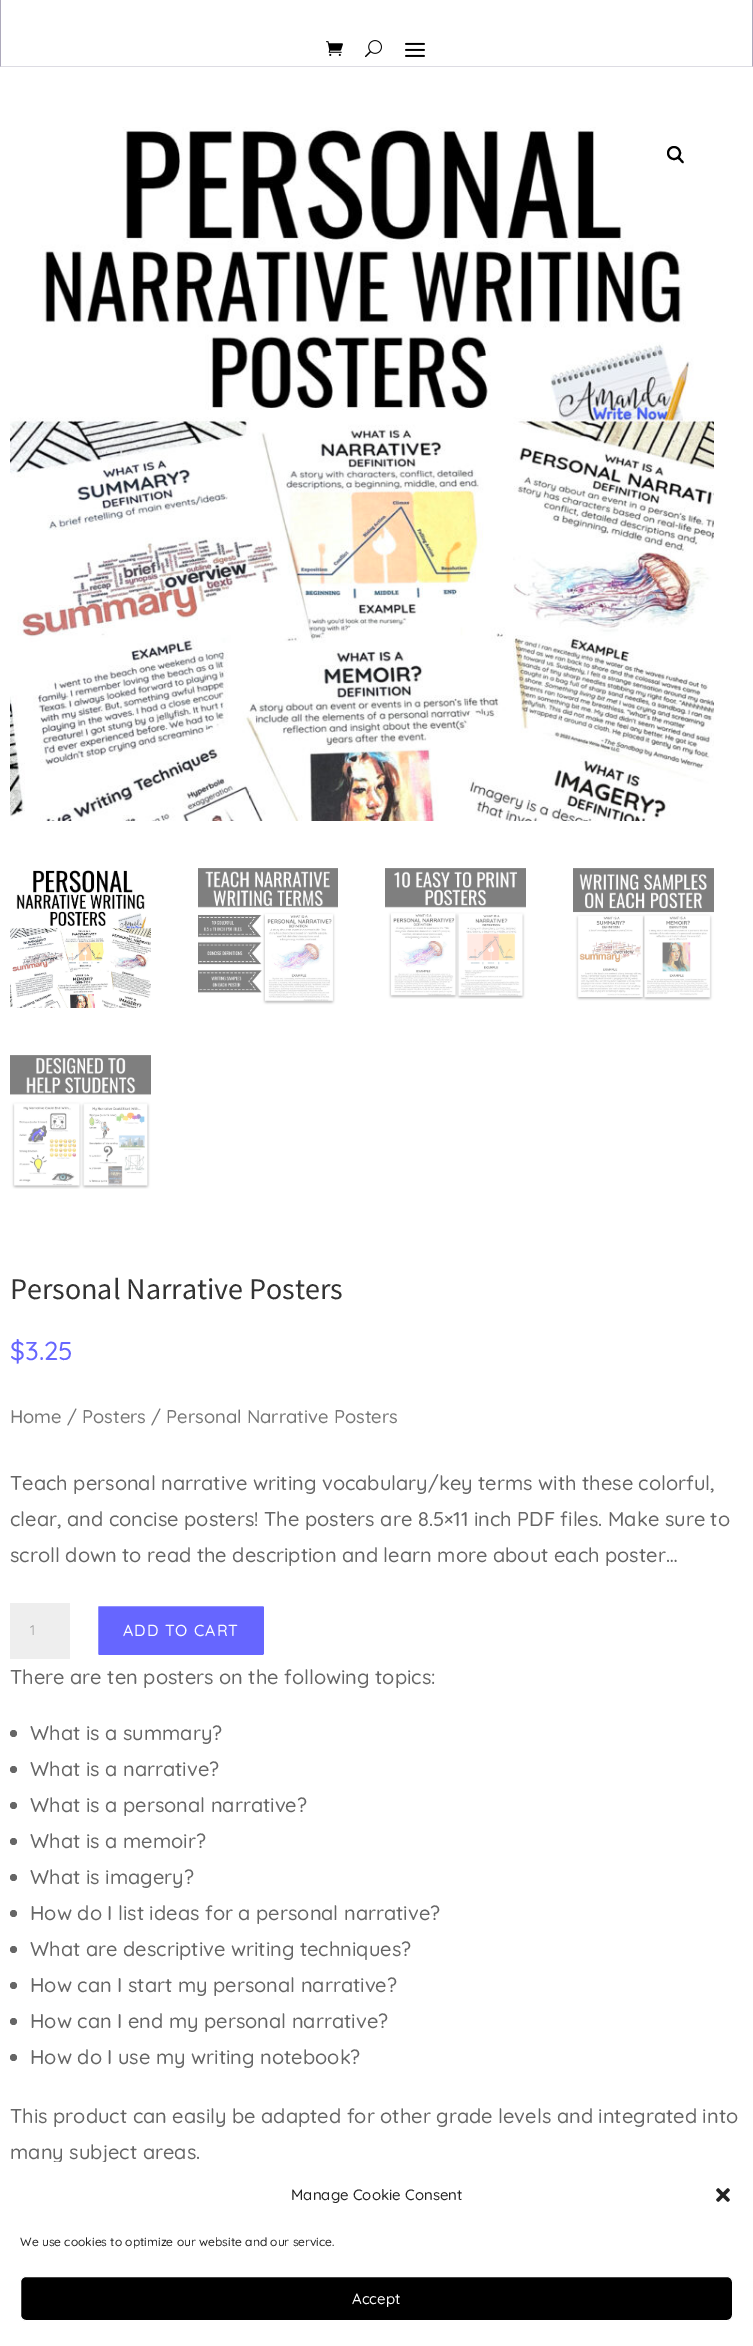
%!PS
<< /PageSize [753 2346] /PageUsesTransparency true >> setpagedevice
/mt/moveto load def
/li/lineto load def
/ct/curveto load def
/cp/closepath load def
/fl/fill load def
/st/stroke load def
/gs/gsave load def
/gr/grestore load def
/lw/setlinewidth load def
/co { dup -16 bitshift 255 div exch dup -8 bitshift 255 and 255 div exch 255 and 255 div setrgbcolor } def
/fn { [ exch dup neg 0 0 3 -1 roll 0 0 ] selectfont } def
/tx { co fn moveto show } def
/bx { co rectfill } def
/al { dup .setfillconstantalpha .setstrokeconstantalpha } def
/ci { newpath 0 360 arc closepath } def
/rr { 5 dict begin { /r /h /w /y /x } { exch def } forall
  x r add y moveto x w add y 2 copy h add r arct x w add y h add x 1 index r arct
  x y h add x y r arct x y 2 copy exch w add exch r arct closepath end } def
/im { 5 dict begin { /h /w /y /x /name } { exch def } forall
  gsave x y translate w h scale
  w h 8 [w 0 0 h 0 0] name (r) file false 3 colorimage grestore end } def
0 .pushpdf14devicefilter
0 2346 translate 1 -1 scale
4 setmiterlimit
0 0 753 2346 16#FFFFFF bx
16#ADA9BB co
753 -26 mt 753 67 li 752 66 li 752 -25 li cp fl
0.41 al
753 67 mt 0 67 li 1 66 li 752 66 li cp fl
1 al
0 67 mt 0 -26 li 1 -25 li 1 66 li cp fl
(media/1.raw) 326 41 17 15 im
(media/2.raw) 365 40 17 18 im
(media/3.raw) 405 42 20 15 im
(media/4.raw) 10 127 704 694 im
16#000000 co
2 lw
674 153 6 ci st
678 157 mt 679 156 681 158.5 681.5 159.5 ct 682 160 684.5 161.5 683.5 163 ct 682.5 164 680.5 161.5 680 160.5 ct 679.5 160 676.5 158.5 678 157 ct cp fl
(media/5.raw) 10 870 141 138 im
(media/6.raw) 198 868 140 137 im
(media/7.raw) 385 868 141 131 im
(media/8.raw) 573 868 141 133 im
(media/9.raw) 10 1055 141 134 im
10 1603 60 56 16#EEEEEE bx
16#6666FF co
97 1605 168 51 2 rr gs fl gr
16#FFFFFF co
st
16#666666 co
13.5 1733.5 3.5 ci fl
13.5 1769.5 3.5 ci fl
13.5 1805.5 3.5 ci fl
13.5 1841.5 3.5 ci fl
13.5 1877.5 3.5 ci fl
13.5 1913.5 3.5 ci fl
13.5 1949.5 3.5 ci fl
13.5 1985.5 3.5 ci fl
13.5 2021.5 3.5 ci fl
13.5 2057.5 3.5 ci fl
(Personal Narrative Posters) 10 1299 /SourceSansPro-Regular 30 16#333333 tx
($3.25) 10 1360 /Quicksand-Light 26 16#6666FF tx
(Home / Posters / Personal Narrative Posters) 10 1423 /Quicksand-Light 18.4 16#767676 tx
(Teach personal narrative writing vocabulary/key terms with these colorful,) 10 1490 /Quicksand-Light 20 16#666666 tx
(clear, and concise posters! The posters are 8.5×11 inch PDF files. Make sure to) 10 1526 /Quicksand-Light 20 16#666666 tx
(scroll down to read the description and learn more about each poster…) 10 1562 /Quicksand-Light 20 16#666666 tx
(1) 30 1635 /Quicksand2-Light 14 16#999999 tx
/Quicksand-Light 16 fn
16#FFFFFF co
123 1636 mt 1 0 (ADD TO CART) ashow
(There are ten posters on the following topics:) 10 1684 /Quicksand-Light 20 16#666666 tx
(What is a summary?) 30 1740 /Quicksand-Light 20 16#666666 tx
(What is a narrative?) 30 1776 /Quicksand-Light 20 16#666666 tx
(What is a personal narrative?) 30 1812 /Quicksand-Light 20 16#666666 tx
(What is a memoir?) 30 1848 /Quicksand-Light 20 16#666666 tx
(What is imagery?) 30 1884 /Quicksand-Light 20 16#666666 tx
(How do I list ideas for a personal narrative?) 30 1920 /Quicksand-Light 20 16#666666 tx
(What are descriptive writing techniques?) 30 1956 /Quicksand-Light 20 16#666666 tx
(How can I start my personal narrative?) 30 1992 /Quicksand-Light 20 16#666666 tx
(How can I end my personal narrative?) 30 2028 /Quicksand-Light 20 16#666666 tx
(How do I use my writing notebook?) 30 2064 /Quicksand-Light 20 16#666666 tx
(This product can easily be adapted for other grade levels and integrated into) 10 2123 /Quicksand-Light 20 16#666666 tx
(many subject areas.) 10 2159 /Quicksand-Light 20 16#666666 tx
16#FFFFFF co
0 2162 753 184 12 rr fl
(Manage Cookie Consent) 291 2200 /Quicksand-Light 15 16#222222 tx
(media/10.raw) 716 2188 14 14 im
(We use cookies to optimize our website and our service.) 20 2246 /Quicksand-Light 12 16#222222 tx
16#000000 co
20.5 2276.5 712 44 5.5 rr gs fl gr
16#FFFFFF co
1 lw
st
(Accept) 352 2304 /Quicksand-Light 15 16#FFFFFF tx
.poppdf14devicefilter showpage
